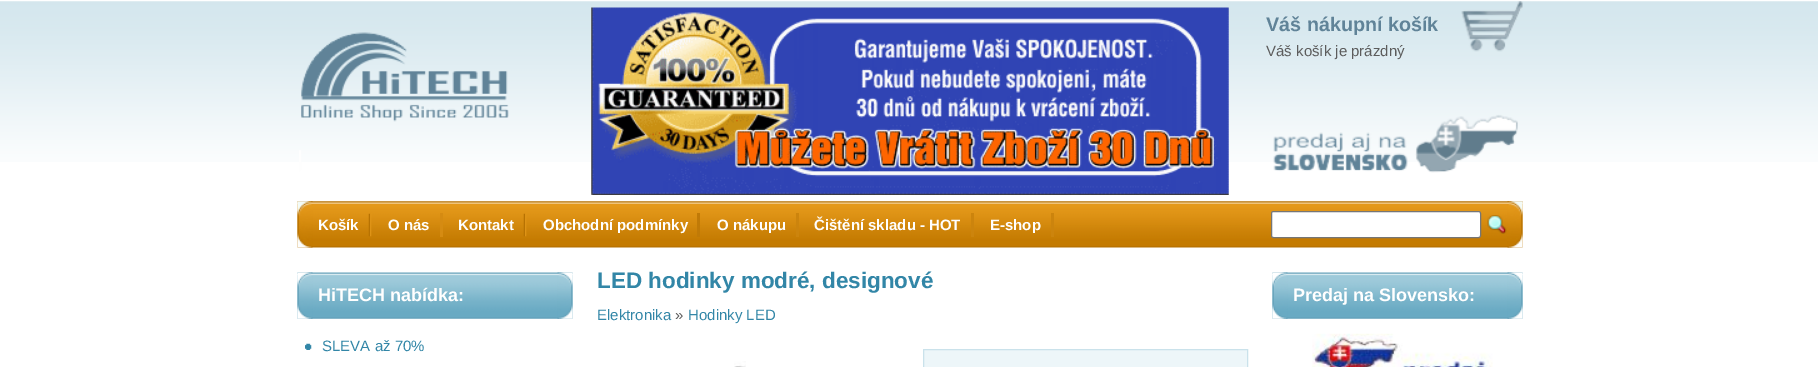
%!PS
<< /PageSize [1818 367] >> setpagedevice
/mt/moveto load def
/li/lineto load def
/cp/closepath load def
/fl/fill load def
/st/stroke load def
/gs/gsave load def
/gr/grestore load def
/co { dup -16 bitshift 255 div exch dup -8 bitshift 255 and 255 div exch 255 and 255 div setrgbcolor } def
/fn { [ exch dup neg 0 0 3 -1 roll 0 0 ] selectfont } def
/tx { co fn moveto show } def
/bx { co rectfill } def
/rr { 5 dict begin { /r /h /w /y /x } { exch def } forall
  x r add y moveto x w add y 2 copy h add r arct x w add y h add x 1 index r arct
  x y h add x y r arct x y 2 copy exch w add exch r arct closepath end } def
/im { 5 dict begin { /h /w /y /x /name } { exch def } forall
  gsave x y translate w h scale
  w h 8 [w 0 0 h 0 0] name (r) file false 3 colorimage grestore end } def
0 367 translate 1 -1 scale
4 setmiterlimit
0 0 1818 367 16#FFFFFF bx
(media/1.raw) 0 1 1818 161 im
(media/2.raw) 299 1 1224 172 im
(media/3.raw) 591 7 638 188 im
(media/4.raw) 297 201 1226 47 im
(media/5.raw) 297 201 16 47 im
(media/6.raw) 368 213 4 24 im
440 213 3 24 16#D58B12 bx
(media/6.raw) 523 213 4 24 im
697 213 3 24 16#C07A07 bx
796 213 3 24 16#CC840D bx
971 213 3 24 16#CC840D bx
1051 213 3 24 16#CC840D bx
16#FFFFFF co
1271.5 211.5 209 26 2 rr gs fl gr
16#767676 co
st
(media/7.raw) 1487 215 20 19 im
(media/8.raw) 1507 201 16 47 im
(media/9.raw) 297 272 276 47 im
(media/10.raw) 297 272 16 47 im
(media/11.raw) 557 272 16 47 im
(media/12.raw) 305 343 7 7 im
(media/13.raw) 734 361 12 6 im
16#EDF6F9 co
923.5 349.5 mt 1247.5 349.5 li 1247.5 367.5 li 923.5 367.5 li cp gs fl gr
16#CAE2EB co
st
(media/14.raw) 1272 272 251 47 im
(media/15.raw) 1272 272 16 47 im
(media/16.raw) 1507 272 16 47 im
(media/17.raw) 1312 333 181 34 im
(Váš nákupní košík) 1266 31 /LiberationSans-Bold 19.75 16#608398 tx
(Váš košík je prázdný) 1266 56 /LiberationSans-Regular 15 16#5C5C5C tx
(Košík) 318 230 /LiberationSans-Bold 15 16#FFFFFF tx
(O nás) 388 230 /LiberationSans-Bold 15 16#FFFFFF tx
(Kontakt) 458 230 /LiberationSans-Bold 15 16#FFFFFF tx
(Obchodní podmínky) 543 230 /LiberationSans-Bold 15 16#FFFFFF tx
(O nákupu) 717 230 /LiberationSans-Bold 15 16#FFFFFF tx
(Čištění skladu - HOT) 814 230 /LiberationSans-Bold 15 16#FFFFFF tx
(E-shop) 990 230 /LiberationSans-Bold 15 16#FFFFFF tx
(HiTECH nabídka:) 318 301 /LiberationSans-Bold 18 16#FFFFFF tx
(SLEVA až 70%) 322 351 /LiberationSans-Regular 15 16#3286A7 tx
(LED hodinky modré, designové) 597 288 /LiberationSans-Bold 22.5 16#3286A7 tx
(Elektronika) 597 320 /LiberationSans-Regular 15 16#3286A7 tx
(») 675 320 /LiberationSans-Regular 15 16#5C5C5C tx
(Hodinky LED) 688 320 /LiberationSans-Regular 15 16#3286A7 tx
(Predaj na Slovensko:) 1293 301 /LiberationSans-Bold 18 16#FFFFFF tx
showpage
